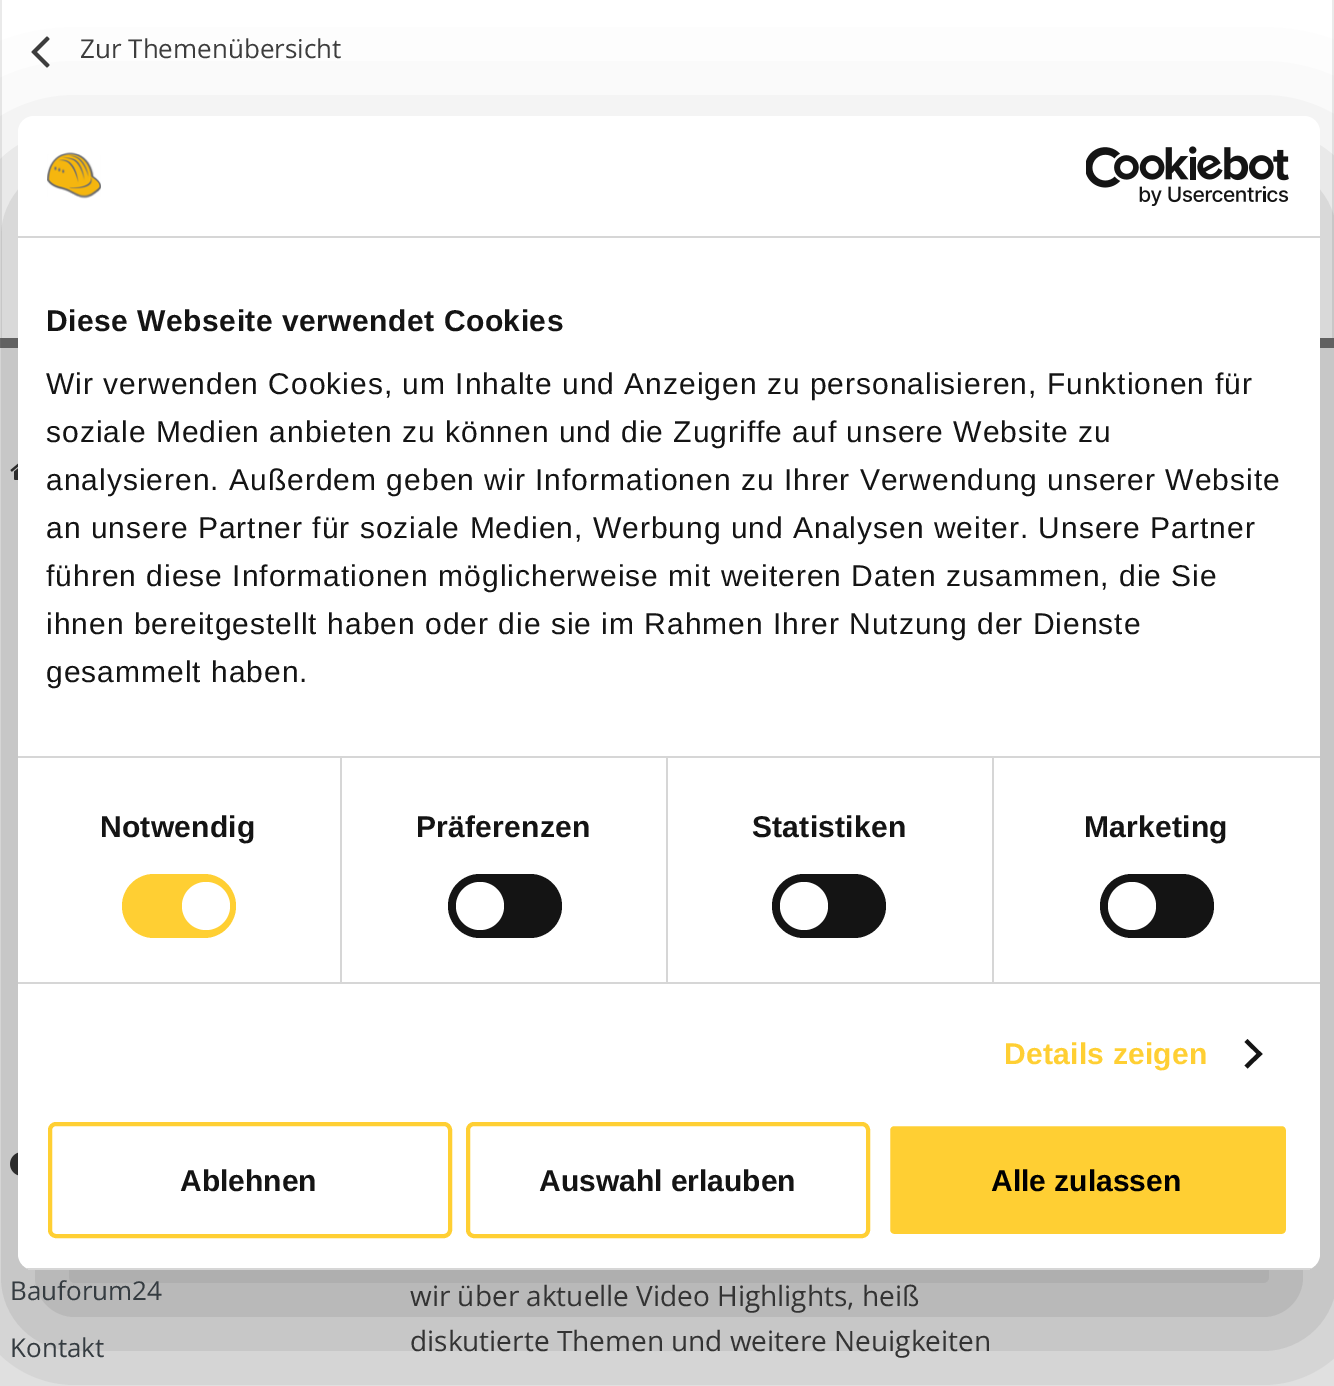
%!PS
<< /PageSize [1334 1386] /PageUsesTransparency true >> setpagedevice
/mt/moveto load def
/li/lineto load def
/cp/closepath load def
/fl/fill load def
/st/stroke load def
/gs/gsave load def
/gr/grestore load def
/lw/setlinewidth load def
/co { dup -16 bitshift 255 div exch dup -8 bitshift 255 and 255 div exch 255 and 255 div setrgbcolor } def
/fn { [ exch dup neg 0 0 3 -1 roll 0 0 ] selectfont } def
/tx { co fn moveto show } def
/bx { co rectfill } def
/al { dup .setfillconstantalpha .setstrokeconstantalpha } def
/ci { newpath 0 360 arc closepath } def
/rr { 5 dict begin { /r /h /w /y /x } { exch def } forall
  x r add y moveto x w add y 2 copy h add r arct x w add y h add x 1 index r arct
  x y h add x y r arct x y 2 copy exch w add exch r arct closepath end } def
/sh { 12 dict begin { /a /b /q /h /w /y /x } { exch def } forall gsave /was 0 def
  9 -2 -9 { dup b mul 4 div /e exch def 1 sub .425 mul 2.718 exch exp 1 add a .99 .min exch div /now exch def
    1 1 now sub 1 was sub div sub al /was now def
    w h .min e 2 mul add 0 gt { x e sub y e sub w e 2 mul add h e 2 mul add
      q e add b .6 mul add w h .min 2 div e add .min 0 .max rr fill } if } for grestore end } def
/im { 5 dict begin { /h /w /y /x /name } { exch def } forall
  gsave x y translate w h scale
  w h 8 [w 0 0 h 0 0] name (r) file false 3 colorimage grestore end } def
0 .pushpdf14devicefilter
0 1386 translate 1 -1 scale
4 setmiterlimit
0 0 1334 1386 16#727272 bx
2 0 1330 338 16#FFFFFF bx
1332 0 2 338 16#EAEAEA bx
0 0 2 338 16#EAEAEA bx
(media/1.raw) 31 36 19 32 im
0 348 1334 1038 16#EAEAEA bx
(media/2.raw) 10 463 8 17 im
(media/3.raw) 10 1152 8 24 im
16#000000 co
18 180 1302 1154 16 68 .3 sh
16#FFFFFF co
18 116 1302 1154 16 rr fl
18 236 1302 2 16#D6D6D6 bx
(media/4.raw) 47 152 54 47 im
(media/5.raw) 1086 146 203 60 im
18 756 1302 2 16#D6D6D6 bx
18 982 1302 2 16#D6D6D6 bx
340 758 2 224 16#D6D6D6 bx
16#FFCF33 co
122 874 114 64 32 rr fl
16#FFFFFF co
206 906 24 ci fl
666 758 2 224 16#D6D6D6 bx
16#141414 co
448 874 114 64 32 rr fl
16#FFFFFF co
480 906 24 ci fl
992 758 2 224 16#D6D6D6 bx
16#141414 co
772 874 114 64 32 rr fl
16#FFFFFF co
804 906 24 ci fl
16#141414 co
1100 874 114 64 32 rr fl
16#FFFFFF co
1132 906 24 ci fl
16#141414 co
1247.5 1039 mt 1262.5 1054 li 1259.5 1056.5 li 1244.5 1042 li cp fl
1259.5 1051 mt 1262.5 1054 li 1247.5 1068.5 li 1244.5 1065.5 li cp fl
gs
18 116 1302 1154 16 rr clip newpath
18 1268 1302 2 16#D6D6D6 bx
gr
16#FFCF33 co
4 lw
50 1124 400 112 6 rr st
468 1124 400 112 6 rr st
888 1124 400 112 6 rr gs fl gr
16#FFFFFF co
st
(Zur Themenübersicht) 80 58 /OpenSans-Regular 26 16#3D3D3D tx
(Bauforum24) 10 1300 /OpenSans-Regular 26 16#353C41 tx
(Kontakt) 10 1357 /OpenSans-Regular 26 16#353C41 tx
(wir über aktuelle Video Highlights, heiß) 410 1306 /OpenSans-Regular 28 16#333333 tx
(diskutierte Themen und weitere Neuigkeiten) 410 1351 /OpenSans-Regular 28 16#333333 tx
/LiberationSans-Bold 30 fn
16#141414 co
46 331 mt .5 0 (Diese Webseite verwendet Cookies) ashow
/LiberationSans-Regular 30 fn
46 394 mt 1 0 (Wir verwenden Cookies, um Inhalte und Anzeigen zu personalisieren, Funktionen für) ashow
46 442 mt 1 0 (soziale Medien anbieten zu können und die Zugriffe auf unsere Website zu) ashow
46 490 mt 1 0 (analysieren. Außerdem geben wir Informationen zu Ihrer Verwendung unserer Website) ashow
46 538 mt 1 0 (an unsere Partner für soziale Medien, Werbung und Analysen weiter. Unsere Partner) ashow
46 586 mt 1 0 (führen diese Informationen möglicherweise mit weiteren Daten zusammen, die Sie) ashow
46 634 mt 1 0 (ihnen bereitgestellt haben oder die sie im Rahmen Ihrer Nutzung der Dienste) ashow
46 682 mt 1 0 (gesammelt haben.) ashow
/LiberationSans-Bold 30 fn
100 837 mt .25 0 (Notwendig) ashow
416 837 mt .25 0 (Präferenzen) ashow
752 837 mt .25 0 (Statistiken) ashow
1084 837 mt .25 0 (Marketing) ashow
16#FFCF33 co
1004 1064 mt .25 0 (Details zeigen) ashow
(Ablehnen) 180 1191 /LiberationSans-Bold 30 16#141414 tx
(Auswahl erlauben) 539 1191 /LiberationSans-Bold 30 16#141414 tx
(Alle zulassen) 991 1191 /LiberationSans-Bold 30 16#000000 tx
.poppdf14devicefilter showpage
